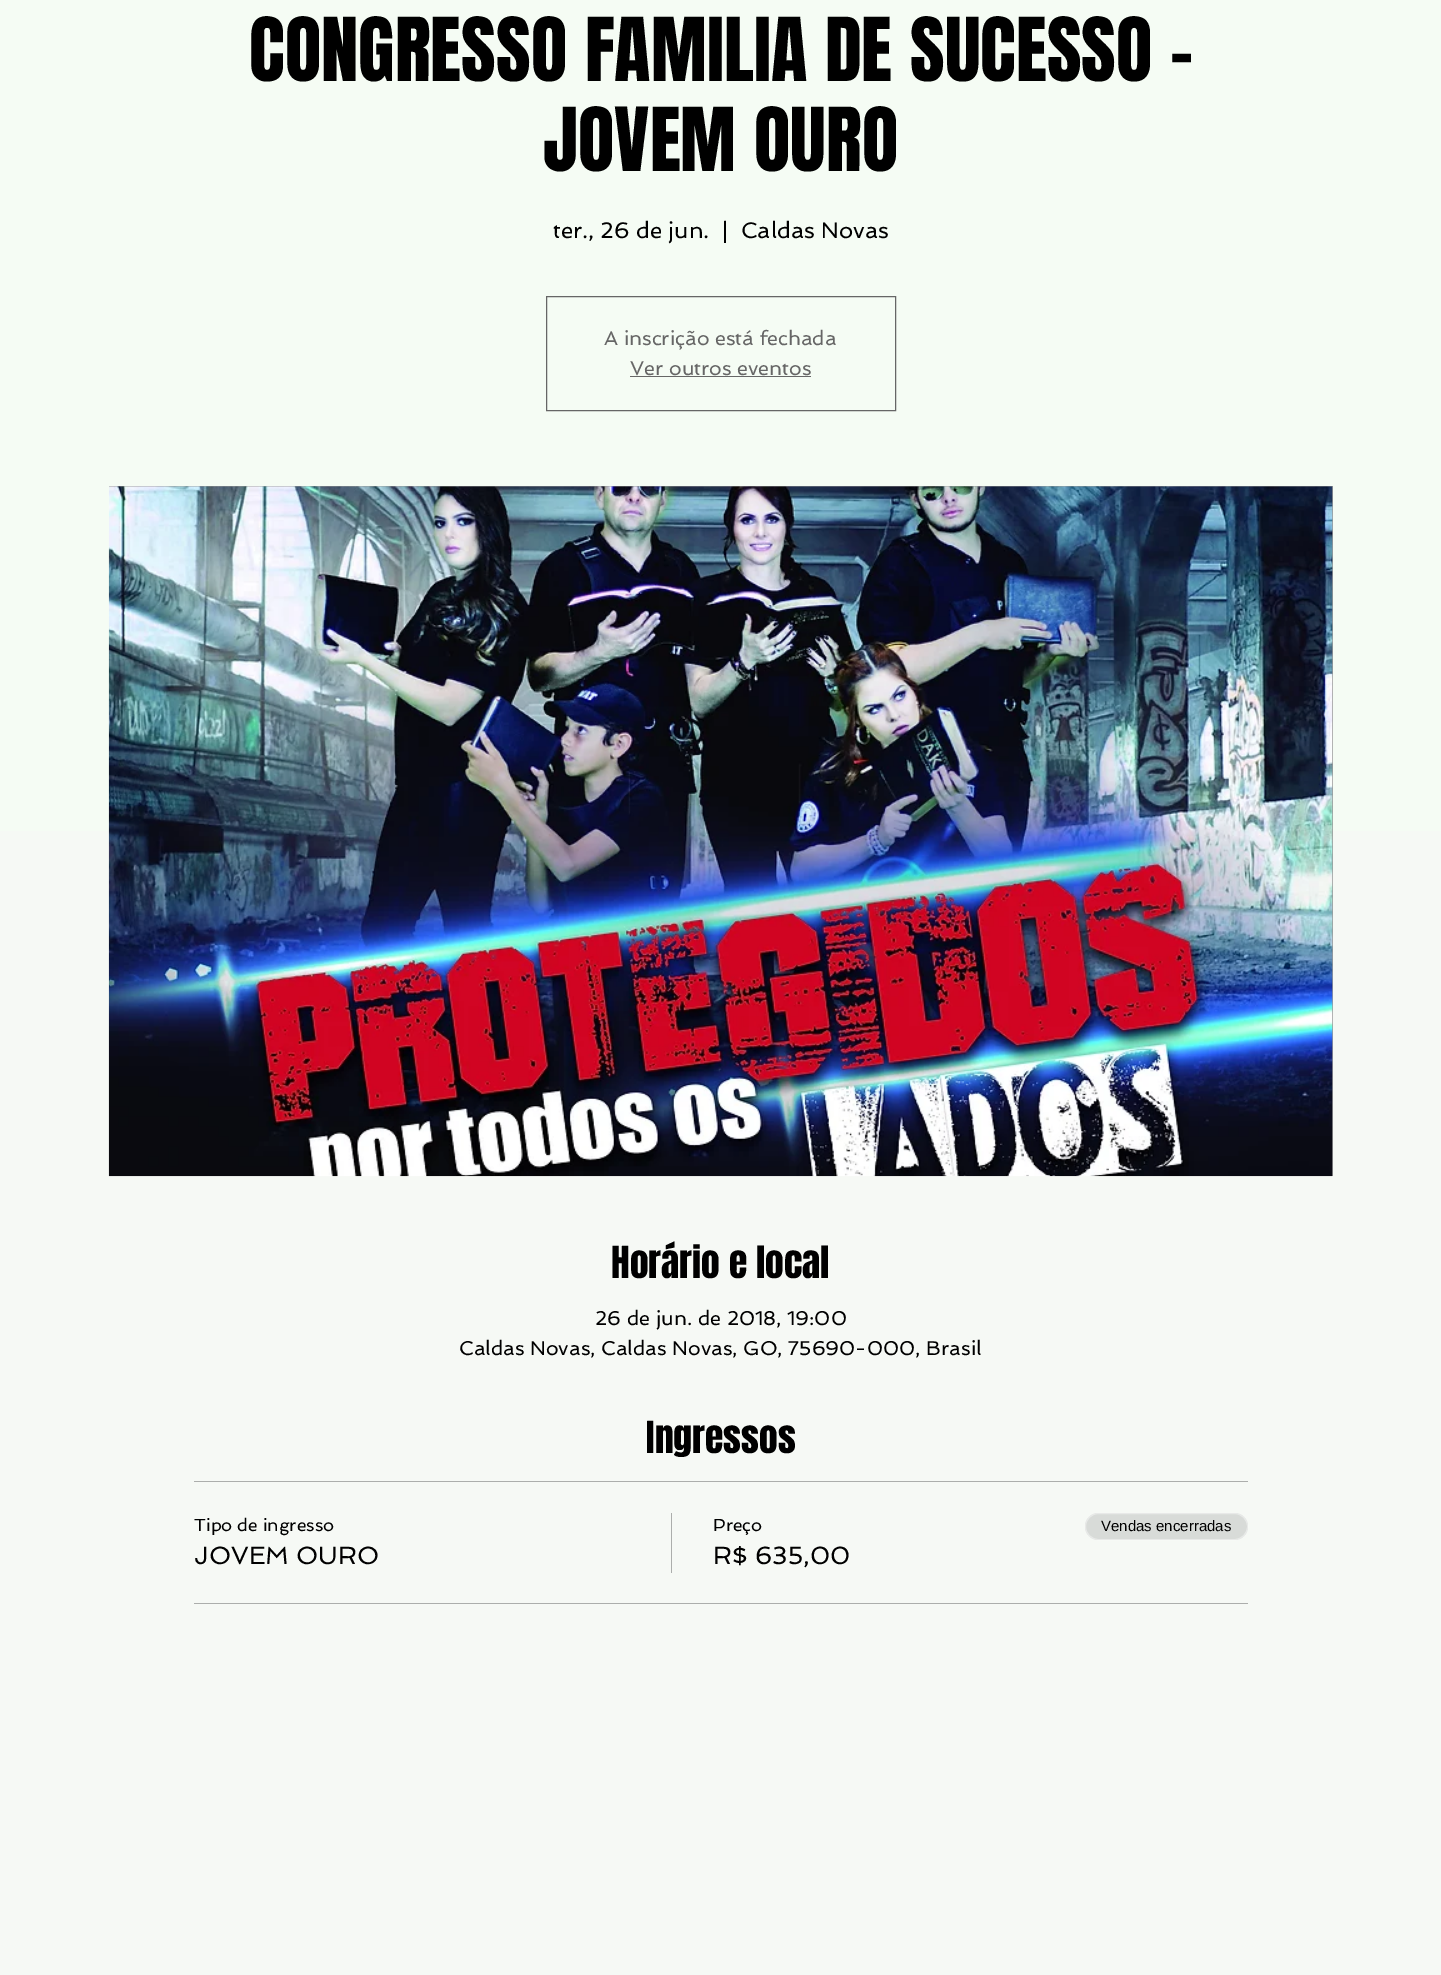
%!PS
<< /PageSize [1441 1975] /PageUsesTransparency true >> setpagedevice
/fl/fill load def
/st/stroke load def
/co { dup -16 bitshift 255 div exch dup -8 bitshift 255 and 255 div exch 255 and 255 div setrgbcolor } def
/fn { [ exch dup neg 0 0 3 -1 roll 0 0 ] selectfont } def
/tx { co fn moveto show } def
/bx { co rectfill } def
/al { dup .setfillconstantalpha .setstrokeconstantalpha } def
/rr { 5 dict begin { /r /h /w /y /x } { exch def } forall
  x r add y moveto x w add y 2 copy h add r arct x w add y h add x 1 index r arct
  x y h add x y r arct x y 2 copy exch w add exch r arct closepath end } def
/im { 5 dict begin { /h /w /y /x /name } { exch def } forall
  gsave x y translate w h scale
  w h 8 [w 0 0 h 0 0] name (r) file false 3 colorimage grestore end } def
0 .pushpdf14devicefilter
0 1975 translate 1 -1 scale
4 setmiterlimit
0 0 1441 1975 16#F6F9F5 bx
0 0 1441 831 16#F5FCF4 bx
16#666666 co
546.5 296.5 349 114 rectstroke
630 376 181 1 16#666666 bx
109 486 1224 690 16#999999 bx
(media/1.raw) 108 486 1225 691 im
194 1481 1054 1 16#ACAEAC bx
194 1603 1054 1 16#ACAEAC bx
671 1513 1 60 16#ACAEAC bx
16#D8DBD8 co
1085 1513 163 27 13.5 rr fl
0.4 al
16#FFFFFF co
1085.5 1513.5 162 26 13 rr st
1 al
(CONGRESSO FAMILIA DE SUCESSO -) 249 81 /Anton-Regular 75 16#000000 tx
(JOVEM OURO) 543 171 /Anton-Regular 75 16#000000 tx
(ter., 26 de jun.) 553 238 /Spinnaker-Regular 22.5 16#000000 tx
(|) 722 238 /Spinnaker-Regular 22.5 16#000000 tx
(Caldas Novas) 741 238 /Spinnaker-Regular 22.5 16#000000 tx
(A inscrição está fechada) 604 345 /Spinnaker-Regular 20 16#666666 tx
(Ver outros eventos) 630 375 /Spinnaker-Regular 20 16#666666 tx
(Horário e local) 611 1278 /Anton-Regular 37.5 16#000000 tx
(26 de jun. de 2018, 19:00) 595 1325 /Spinnaker-Regular 20 16#000000 tx
(Caldas Novas, Caldas Novas, GO, 75690-000, Brasil) 459 1355 /Spinnaker-Regular 20 16#000000 tx
(Ingressos) 646 1453 /Anton-Regular 37.5 16#000000 tx
(Tipo de ingresso) 194 1531 /Spinnaker-Regular 17.5 16#000000 tx
(JOVEM OURO) 194 1564 /Spinnaker-Regular 25 16#000000 tx
(Preço) 713 1531 /Spinnaker-Regular 17.5 16#000000 tx
(R$ 635,00) 713 1564 /Spinnaker-Regular 25 16#000000 tx
(Vendas encerradas) 1101 1531 /LiberationSans-Regular 15 16#000000 tx
.poppdf14devicefilter showpage
